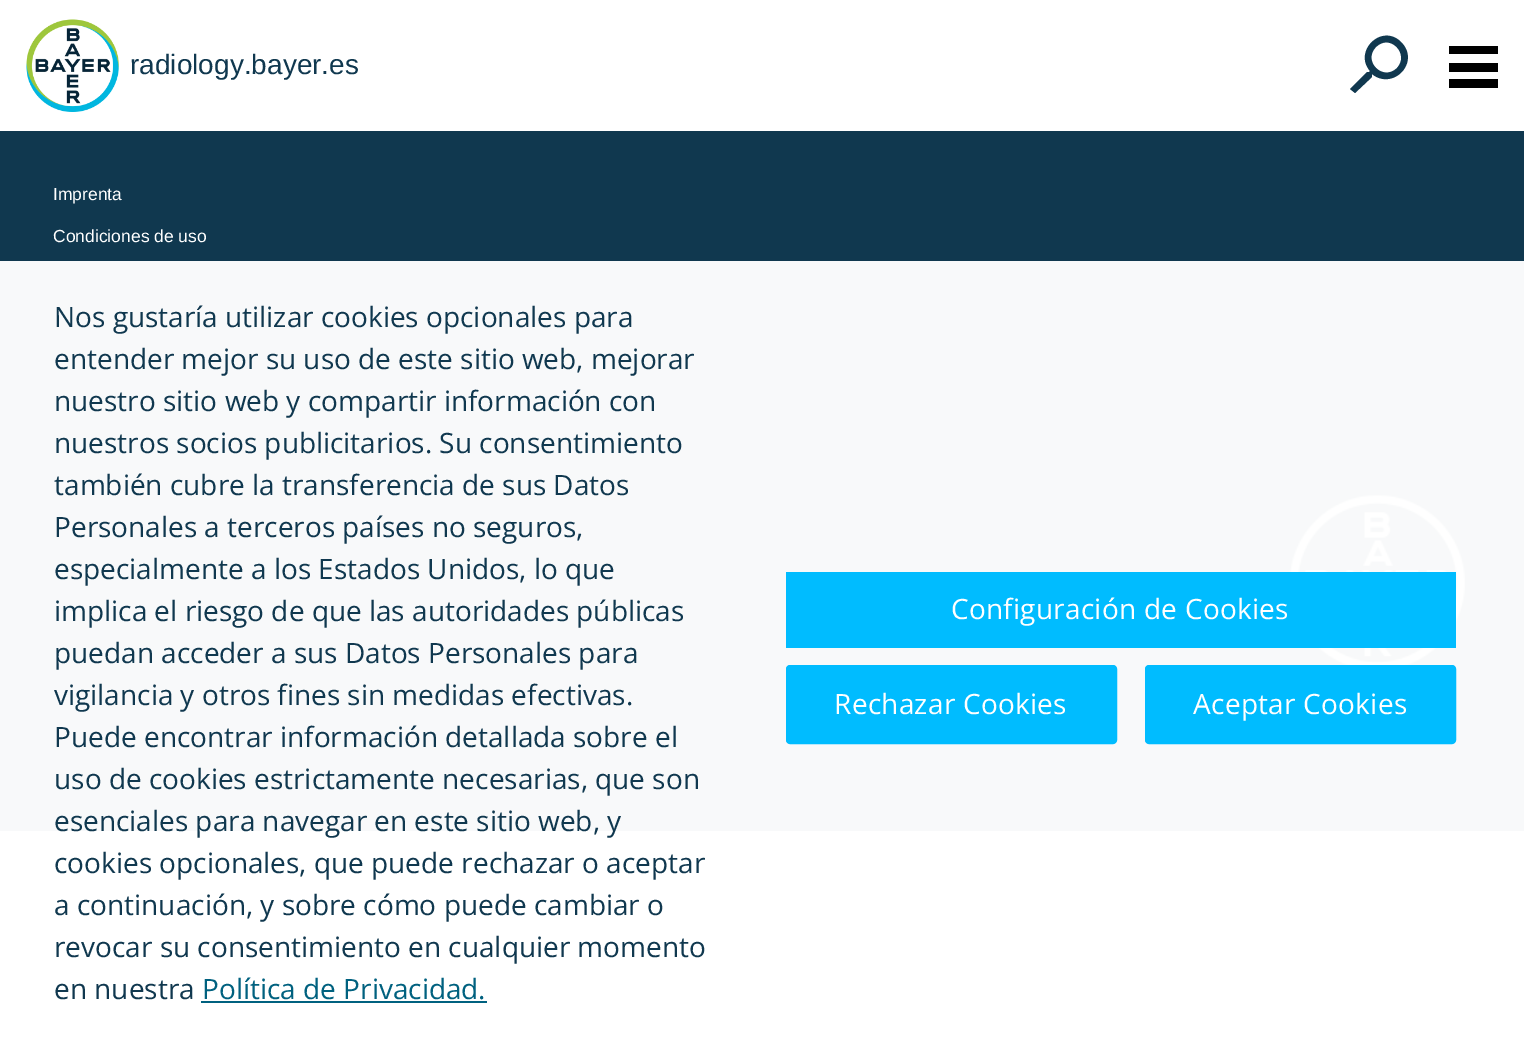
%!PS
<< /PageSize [1524 1054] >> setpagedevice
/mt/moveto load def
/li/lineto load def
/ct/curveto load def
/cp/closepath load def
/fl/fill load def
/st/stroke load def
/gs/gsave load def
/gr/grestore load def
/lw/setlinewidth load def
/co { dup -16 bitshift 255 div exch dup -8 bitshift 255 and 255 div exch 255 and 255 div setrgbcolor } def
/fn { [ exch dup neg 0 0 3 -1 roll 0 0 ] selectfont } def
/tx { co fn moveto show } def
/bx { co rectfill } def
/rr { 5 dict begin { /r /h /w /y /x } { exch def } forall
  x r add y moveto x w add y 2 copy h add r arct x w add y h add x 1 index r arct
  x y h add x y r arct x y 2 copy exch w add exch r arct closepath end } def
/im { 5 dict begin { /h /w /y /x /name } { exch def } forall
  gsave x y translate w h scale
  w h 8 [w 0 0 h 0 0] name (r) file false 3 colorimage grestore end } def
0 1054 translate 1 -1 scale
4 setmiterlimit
0 0 1524 1054 16#FFFFFF bx
(media/1.raw) 26 19 93 93 im
16#10384F co
1367 72 mt 1350 89 li 1355 93 li 1372 77 li 1372 75 li 1372 74 li 1393 91 1421 62 1401 42 ct 1382 23 1353 51 1370 71 ct 1369 72 li cp 1397 68 mt 1383 82 1362 61 1376 47 ct 1390 33 1410 54 1397 68 ct cp fl
1449 46 49 8 16#000000 bx
1449 79 49 9 16#000000 bx
1449 63 49 9 16#000000 bx
0 131 1524 130 16#10384F bx
0 261 1524 570 16#F8F9FA bx
(media/2.raw) 1289 495 176 170 im
201 1001 286 2 16#00617F bx
786 572 670 76 16#00BCFF bx
787 666 329 77 3 rr gs fl gr
2 lw
st
1146 666 309 77 3 rr gs fl gr
st
(radiology.bayer.es) 130 74 /LiberationSans-Regular 28 16#10384F tx
(Imprenta) 53 200 /LiberationSans-Regular 17.5 16#FFFFFF tx
(Condiciones de uso) 53 242 /LiberationSans-Regular 17.5 16#FFFFFF tx
(Nos gustaría utilizar cookies opcionales para) 54 327 /OpenSans-Regular 28 16#10384F tx
(entender mejor su uso de este sitio web, mejorar) 54 369 /OpenSans-Regular 28 16#10384F tx
(nuestro sitio web y compartir información con) 54 411 /OpenSans-Regular 28 16#10384F tx
(nuestros socios publicitarios. Su consentimiento) 54 453 /OpenSans-Regular 28 16#10384F tx
(también cubre la transferencia de sus Datos) 54 495 /OpenSans-Regular 28 16#10384F tx
(Personales a terceros países no seguros,) 54 537 /OpenSans-Regular 28 16#10384F tx
(especialmente a los Estados Unidos, lo que) 54 579 /OpenSans-Regular 28 16#10384F tx
(implica el riesgo de que las autoridades públicas) 54 621 /OpenSans-Regular 28 16#10384F tx
(puedan acceder a sus Datos Personales para) 54 663 /OpenSans-Regular 28 16#10384F tx
(vigilancia y otros fines sin medidas efectivas.) 54 705 /OpenSans-Regular 28 16#10384F tx
(Puede encontrar información detallada sobre el) 54 747 /OpenSans-Regular 28 16#10384F tx
(uso de cookies estrictamente necesarias, que son) 54 789 /OpenSans-Regular 28 16#10384F tx
(esenciales para navegar en este sitio web, y) 54 831 /OpenSans-Regular 28 16#10384F tx
(cookies opcionales, que puede rechazar o aceptar) 54 873 /OpenSans-Regular 28 16#10384F tx
(a continuación, y sobre cómo puede cambiar o) 54 915 /OpenSans-Regular 28 16#10384F tx
(revocar su consentimiento en cualquier momento) 54 957 /OpenSans-Regular 28 16#10384F tx
(en nuestra) 54 999 /OpenSans-Regular 28 16#10384F tx
(Política de Privacidad.) 202 999 /OpenSans-Regular 28 16#00617F tx
16#FFFFFF co
951 619 mt .25 0 (Configuración de Cookies) ashow
834 714 mt .25 0 (Rechazar Cookies) ashow
1193 714 mt .25 0 (Aceptar Cookies) ashow
showpage
